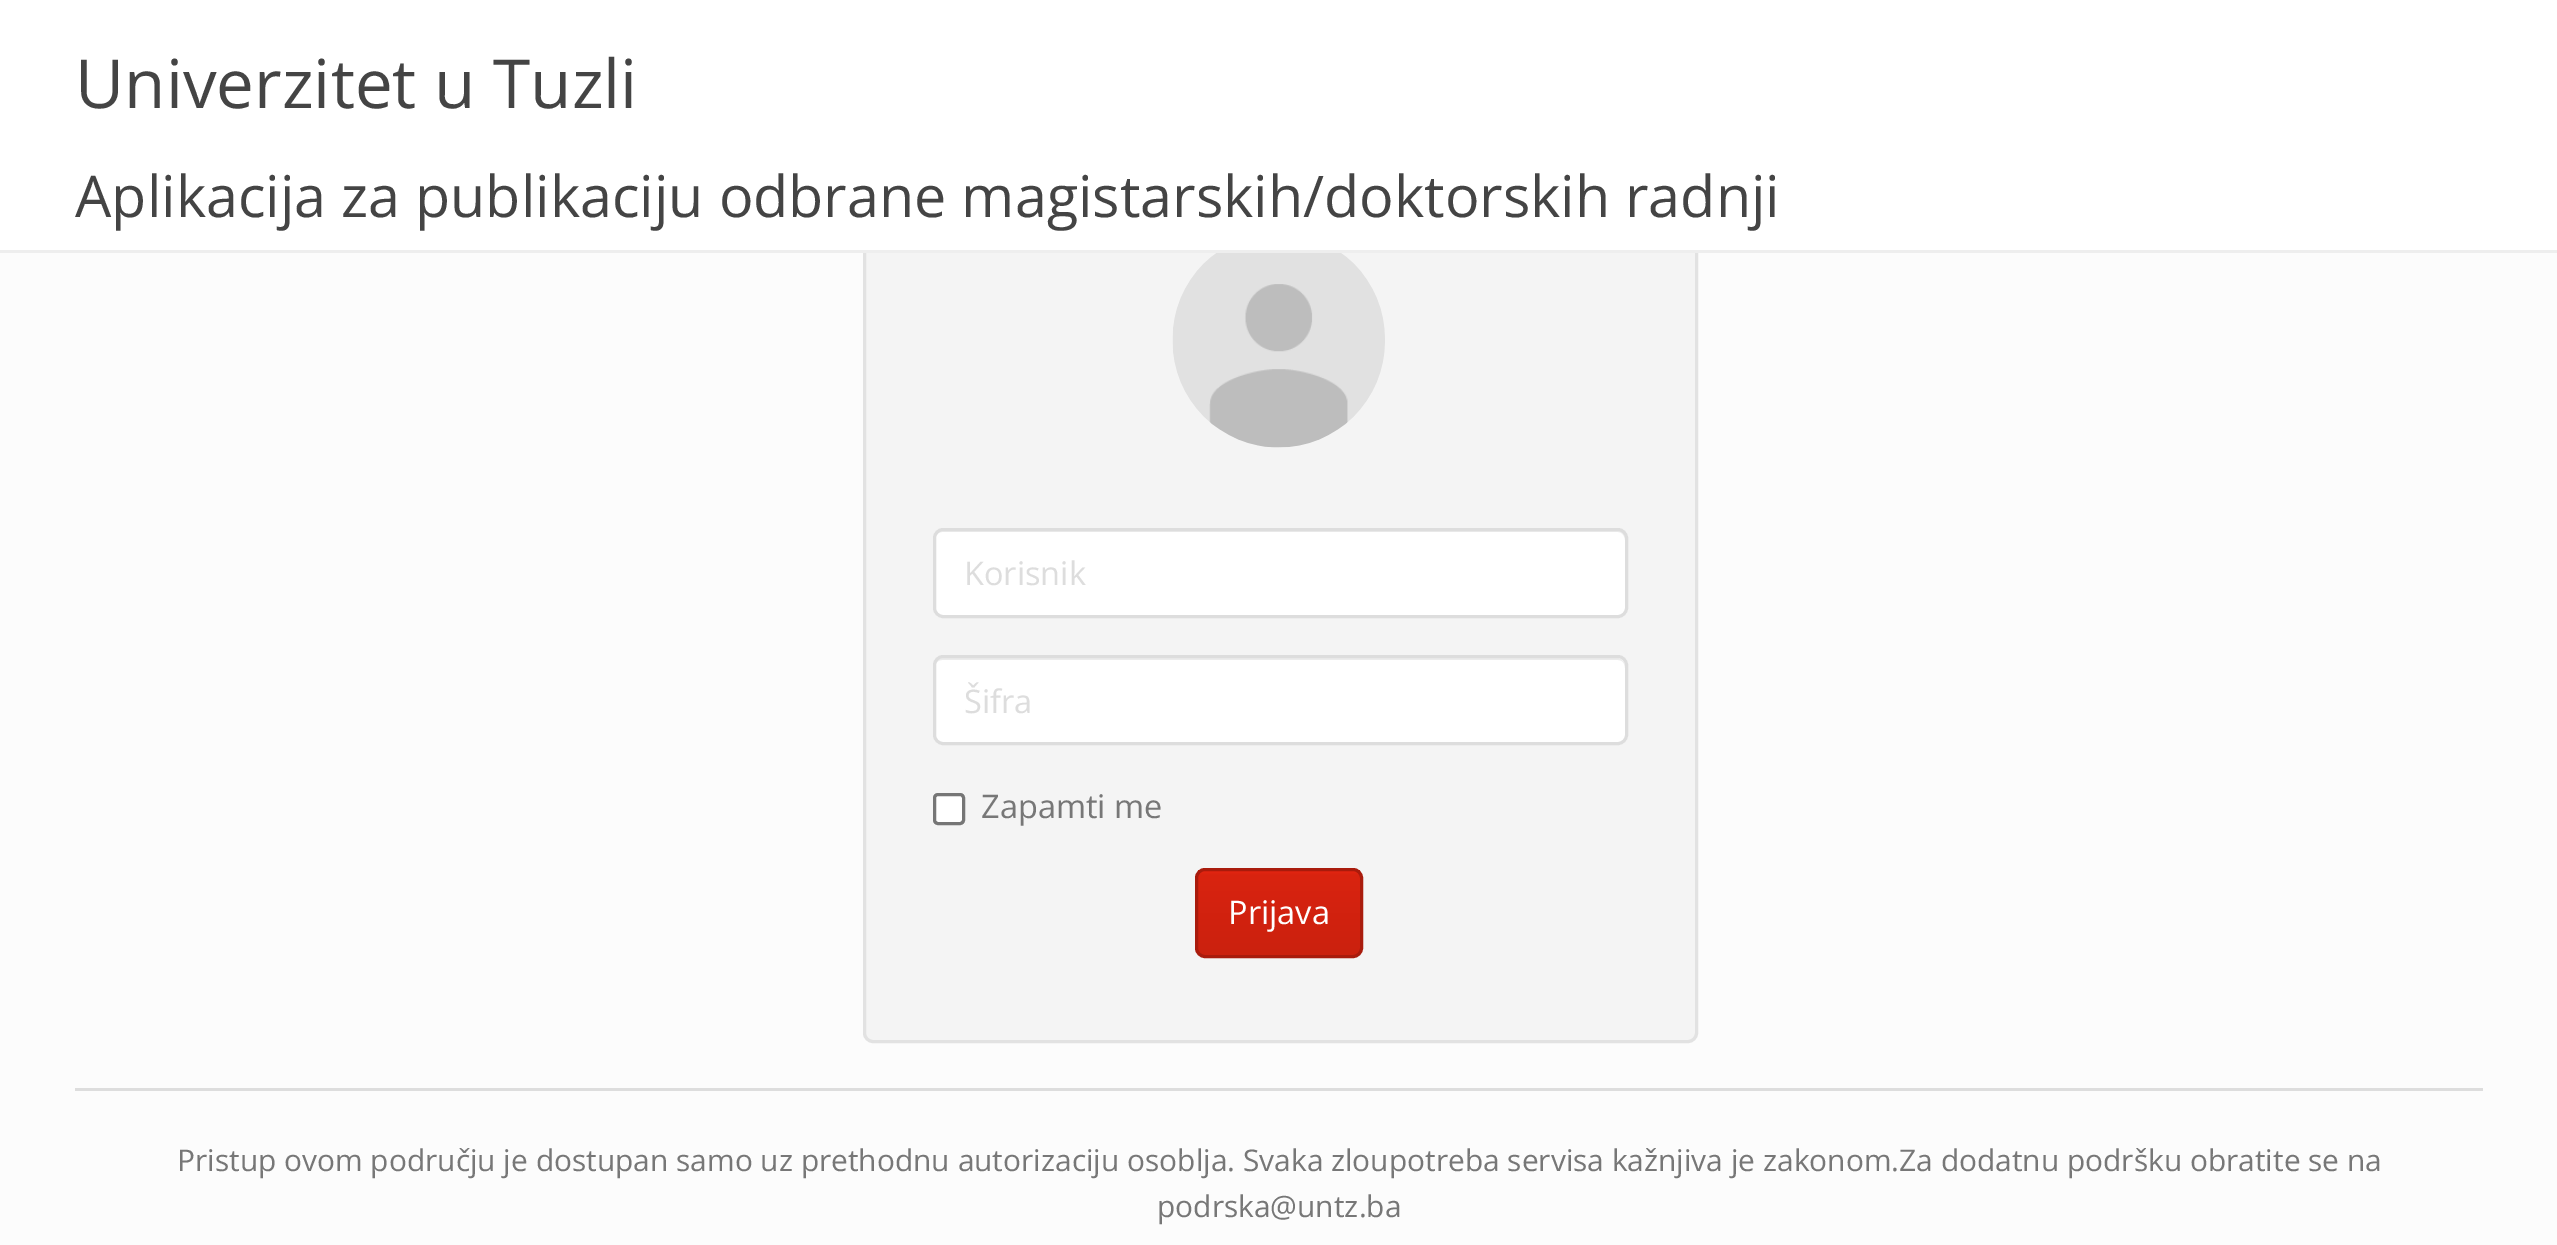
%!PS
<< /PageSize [2557 1245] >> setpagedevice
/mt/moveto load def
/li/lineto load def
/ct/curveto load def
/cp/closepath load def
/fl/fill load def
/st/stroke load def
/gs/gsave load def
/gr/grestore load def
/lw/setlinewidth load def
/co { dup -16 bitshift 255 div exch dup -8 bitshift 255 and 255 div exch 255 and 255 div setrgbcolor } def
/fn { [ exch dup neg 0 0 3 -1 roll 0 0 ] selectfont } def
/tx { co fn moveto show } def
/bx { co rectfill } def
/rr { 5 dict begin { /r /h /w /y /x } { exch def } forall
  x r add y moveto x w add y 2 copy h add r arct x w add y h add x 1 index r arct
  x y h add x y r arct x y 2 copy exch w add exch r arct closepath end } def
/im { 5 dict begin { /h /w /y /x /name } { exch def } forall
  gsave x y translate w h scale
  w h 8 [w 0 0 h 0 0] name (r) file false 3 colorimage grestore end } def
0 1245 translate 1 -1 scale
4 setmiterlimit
0 0 2557 1245 16#FCFCFC bx
16#F4F4F4 co
864.5 174.5 832 867 8.5 rr gs fl gr
16#E2E2E2 co
3 lw
st
0 0 2557 250 16#FFFFFF bx
0 250 2557 3 16#EEEEEE bx
(media/1.raw) 1172 253 213 195 im
16#FFFFFF co
933 528 695 90 10 rr fl
16#ECECEC co
942 532 mt 1618 532 li 1622 532 1625 536 1625 540 ct 1625 538 li 1625 534 1621 530 1617 530 ct 943 530 li 939 530 935 534 935 538 ct 935 540 li 935 536 938 532 942 532 ct cp fl
16#DDDDDD co
934.5 529.5 692 87 8.5 rr st
16#FFFFFF co
933 655 695 90 10 rr fl
16#ECECEC co
942 660 mt 1618 660 li 1622 660 1625 663 1625 668 ct 1625 666 li 1625 662 1621 658 1617 658 ct 943 658 li 939 658 935 662 935 666 ct 935 668 li 935 663 938 660 942 660 ct cp fl
16#DDDDDD co
934.5 656.5 692 87 8.5 rr st
16#FFFFFF co
934.5 794.5 29 29 3.5 rr gs fl gr
16#767676 co
st
gs 1198 870 mt 1360 870 li 1360 955 li 1198 955 li cp clip newpath
<< /ShadingType 2 /ColorSpace /DeviceRGB /Coords [1279 870 1279 955] /Extend [true true] /Function << /FunctionType 3 /Domain [0 1] /Functions [<< /FunctionType 2 /Domain [0 1] /C0 [.906 .145 .063] /C1 [.851 .137 .059] /N 1 >> << /FunctionType 2 /Domain [0 1] /C0 [.851 .137 .059] /C1 [.796 .129 .055] /N 1 >>] /Bounds [.06] /Encode [0 1 0 1] >> >> shfill gr
16#A91B0C co
1196.5 869.5 165 87 8.5 rr st
75 1088 2408 3 16#DDDDDD bx
(Univerzitet u Tuzli) 75 108 /OpenSans-Regular 67.5 16#444444 tx
(Aplikacija za publikaciju odbrane magistarskih/doktorskih radnji) 75 217 /OpenSans-Regular 57.5 16#444444 tx
(Korisnik) 964 585 /OpenSans-Regular 32.5 16#DDDDDD tx
(Šifra) 964 713 /OpenSans-Regular 32.5 16#DDDDDD tx
(Zapamti me) 981 818 /OpenSans-Regular 32.5 16#777777 tx
(Prijava) 1228 924 /OpenSans-Regular 32.5 16#FFFFFF tx
(Pristup ovom području je dostupan samo uz prethodnu autorizaciju osoblja. Svaka zloupotreba servisa kažnjiva je zakonom.Za dodatnu podršku obratite se na) 177 1171 /OpenSans-Regular 29.9 16#777777 tx
(podrska@untz.ba) 1157 1217 /OpenSans-Regular 29.9 16#777777 tx
showpage
